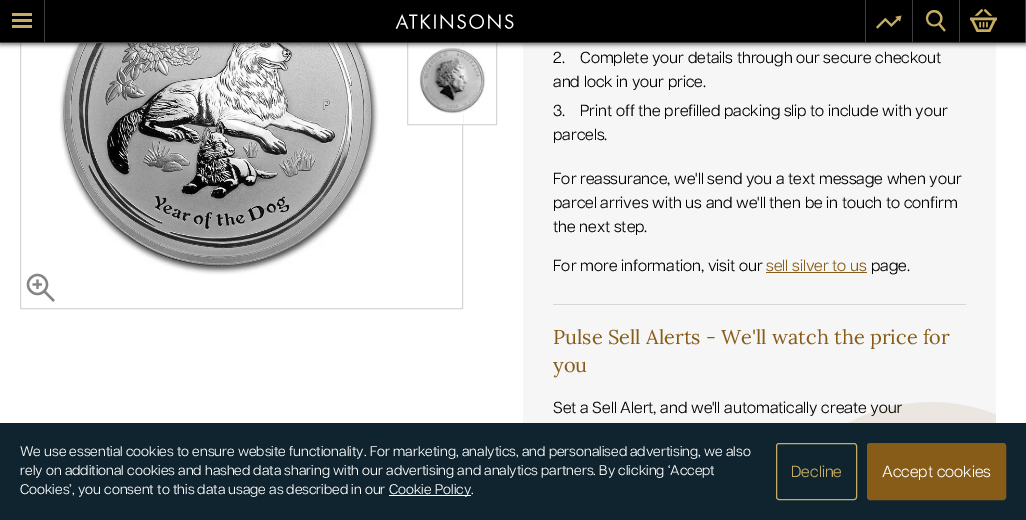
%!PS
<< /PageSize [1026 520] /PageUsesTransparency true >> setpagedevice
/mt/moveto load def
/li/lineto load def
/fl/fill load def
/st/stroke load def
/gs/gsave load def
/gr/grestore load def
/lw/setlinewidth load def
/co { dup -16 bitshift 255 div exch dup -8 bitshift 255 and 255 div exch 255 and 255 div setrgbcolor } def
/fn { [ exch dup neg 0 0 3 -1 roll 0 0 ] selectfont } def
/tx { co fn moveto show } def
/bx { co rectfill } def
/al { dup .setfillconstantalpha .setstrokeconstantalpha } def
/ci { newpath 0 360 arc closepath } def
/rr { 5 dict begin { /r /h /w /y /x } { exch def } forall
  x r add y moveto x w add y 2 copy h add r arct x w add y h add x 1 index r arct
  x y h add x y r arct x y 2 copy exch w add exch r arct closepath end } def
/sh { 12 dict begin { /a /b /q /h /w /y /x } { exch def } forall gsave /was 0 def
  9 -2 -9 { dup b mul 4 div /e exch def 1 sub .425 mul 2.718 exch exp 1 add a .99 .min exch div /now exch def
    1 1 now sub 1 was sub div sub al /was now def
    w h .min e 2 mul add 0 gt { x e sub y e sub w e 2 mul add h e 2 mul add
      q e add b .6 mul add w h .min 2 div e add .min 0 .max rr fill } if } for grestore end } def
/im { 5 dict begin { /h /w /y /x /name } { exch def } forall
  gsave x y translate w h scale
  w h 8 [w 0 0 h 0 0] name (r) file false 3 colorimage grestore end } def
0 .pushpdf14devicefilter
0 520 translate 1 -1 scale
4 setmiterlimit
0 0 1026 520 16#FFFFFF bx
16#D9D5D0 co
20.5 -.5 442 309 rectstroke
(media/5.raw) 59 43 320 232 im
407.5 35.5 89 89 rectstroke
462 43 1 81 16#FFFFFF bx
(media/6.raw) 419 46 67 68 im
523 43 473 380 16#F6F6F6 bx
16#000000 co
0 2 1026 43 0 2 .5 sh
0 0 1025 42 16#000000 bx
0 42 1026 1 16#3F3E42 bx
44 0 1 42 16#3F3E42 bx
12 19 20 3 16#C7AD63 bx
12 13 20 3 16#C7AD63 bx
12 25 20 3 16#C7AD63 bx
1025 0 1 42 16#3F3E42 bx
(media/1.raw) 395 14 119 16 im
865 0 1 42 16#3F3E42 bx
(media/2.raw) 876 15 26 14 im
912 0 1 42 16#3F3E42 bx
(media/3.raw) 925 10 21 22 im
959 0 1 42 16#3F3E42 bx
(media/4.raw) 970 9 27 23 im
16#858585 co
2.3 lw
37.5 284.5 9.5 ci st
54 301 mt 44 291 li 32.5 284.5 mt 42 284.5 li 37.5 279.5 mt 37.5 289 li st
766 272 101 1 16#865C18 bx
553 304 413 1 16#D9D5D0 bx
0 423 1026 97 16#0F242E bx
389 495 82 1 16#FFFFFF bx
16#C7AD63 co
1 lw
776.5 443.5 80 56 2.5 rr st
16#865C18 co
867.5 443.5 138 56 2.5 rr gs fl gr
st
(2.) 553 63 /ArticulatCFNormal-Regular 16 16#000000 tx
(Complete your details through our secure checkout) 580 63 /ArticulatCFNormal-Regular 16 16#000000 tx
(and lock in your price.) 553 87 /ArticulatCFNormal-Regular 16 16#000000 tx
(3.) 553 116 /ArticulatCFNormal-Regular 16 16#000000 tx
(Print off the prefilled packing slip to include with your) 580 116 /ArticulatCFNormal-Regular 16 16#000000 tx
(parcels.) 553 140 /ArticulatCFNormal-Regular 16 16#000000 tx
(For reassurance, we'll send you a text message when your) 553 184 /ArticulatCFNormal-Regular 16 16#000000 tx
(parcel arrives with us and we'll then be in touch to confirm) 553 208 /ArticulatCFNormal-Regular 16 16#000000 tx
(the next step.) 553 232 /ArticulatCFNormal-Regular 16 16#000000 tx
(For more information, visit our) 553 271 /ArticulatCFNormal-Regular 16 16#000000 tx
(sell silver to us) 766 271 /ArticulatCFNormal-Regular 16 16#865C18 tx
(page.) 871 271 /ArticulatCFNormal-Regular 16 16#000000 tx
(Pulse Sell Alerts - We'll watch the price for) 553 344 /Lora-Regular 20 16#865C18 tx
(you) 553 372 /Lora-Regular 20 16#865C18 tx
(Set a Sell Alert, and we'll automatically create your) 553 413 /ArticulatCFNormal-Regular 16 16#000000 tx
(media/7.raw) 848 402 148 21 im
(We use essential cookies to ensure website functionality. For marketing, analytics, and personalised advertising, we also) 20 456 /ArticulatCFNormal-Regular 14 16#FFFFFF tx
(rely on additional cookies and hashed data sharing with our advertising and analytics partners. By clicking ‘Accept) 20 475 /ArticulatCFNormal-Regular 14 16#FFFFFF tx
(Cookies’, you consent to this data usage as described in our) 20 494 /ArticulatCFNormal-Regular 14 16#FFFFFF tx
(Cookie Policy.) 389 494 /ArticulatCFNormal-Regular 14 16#FFFFFF tx
(Decline) 791 477 /ArticulatCFNormal-Regular 16 16#C7AD63 tx
(Accept cookies) 882 477 /ArticulatCFNormal-Regular 16 16#FFFFFF tx
.poppdf14devicefilter showpage
